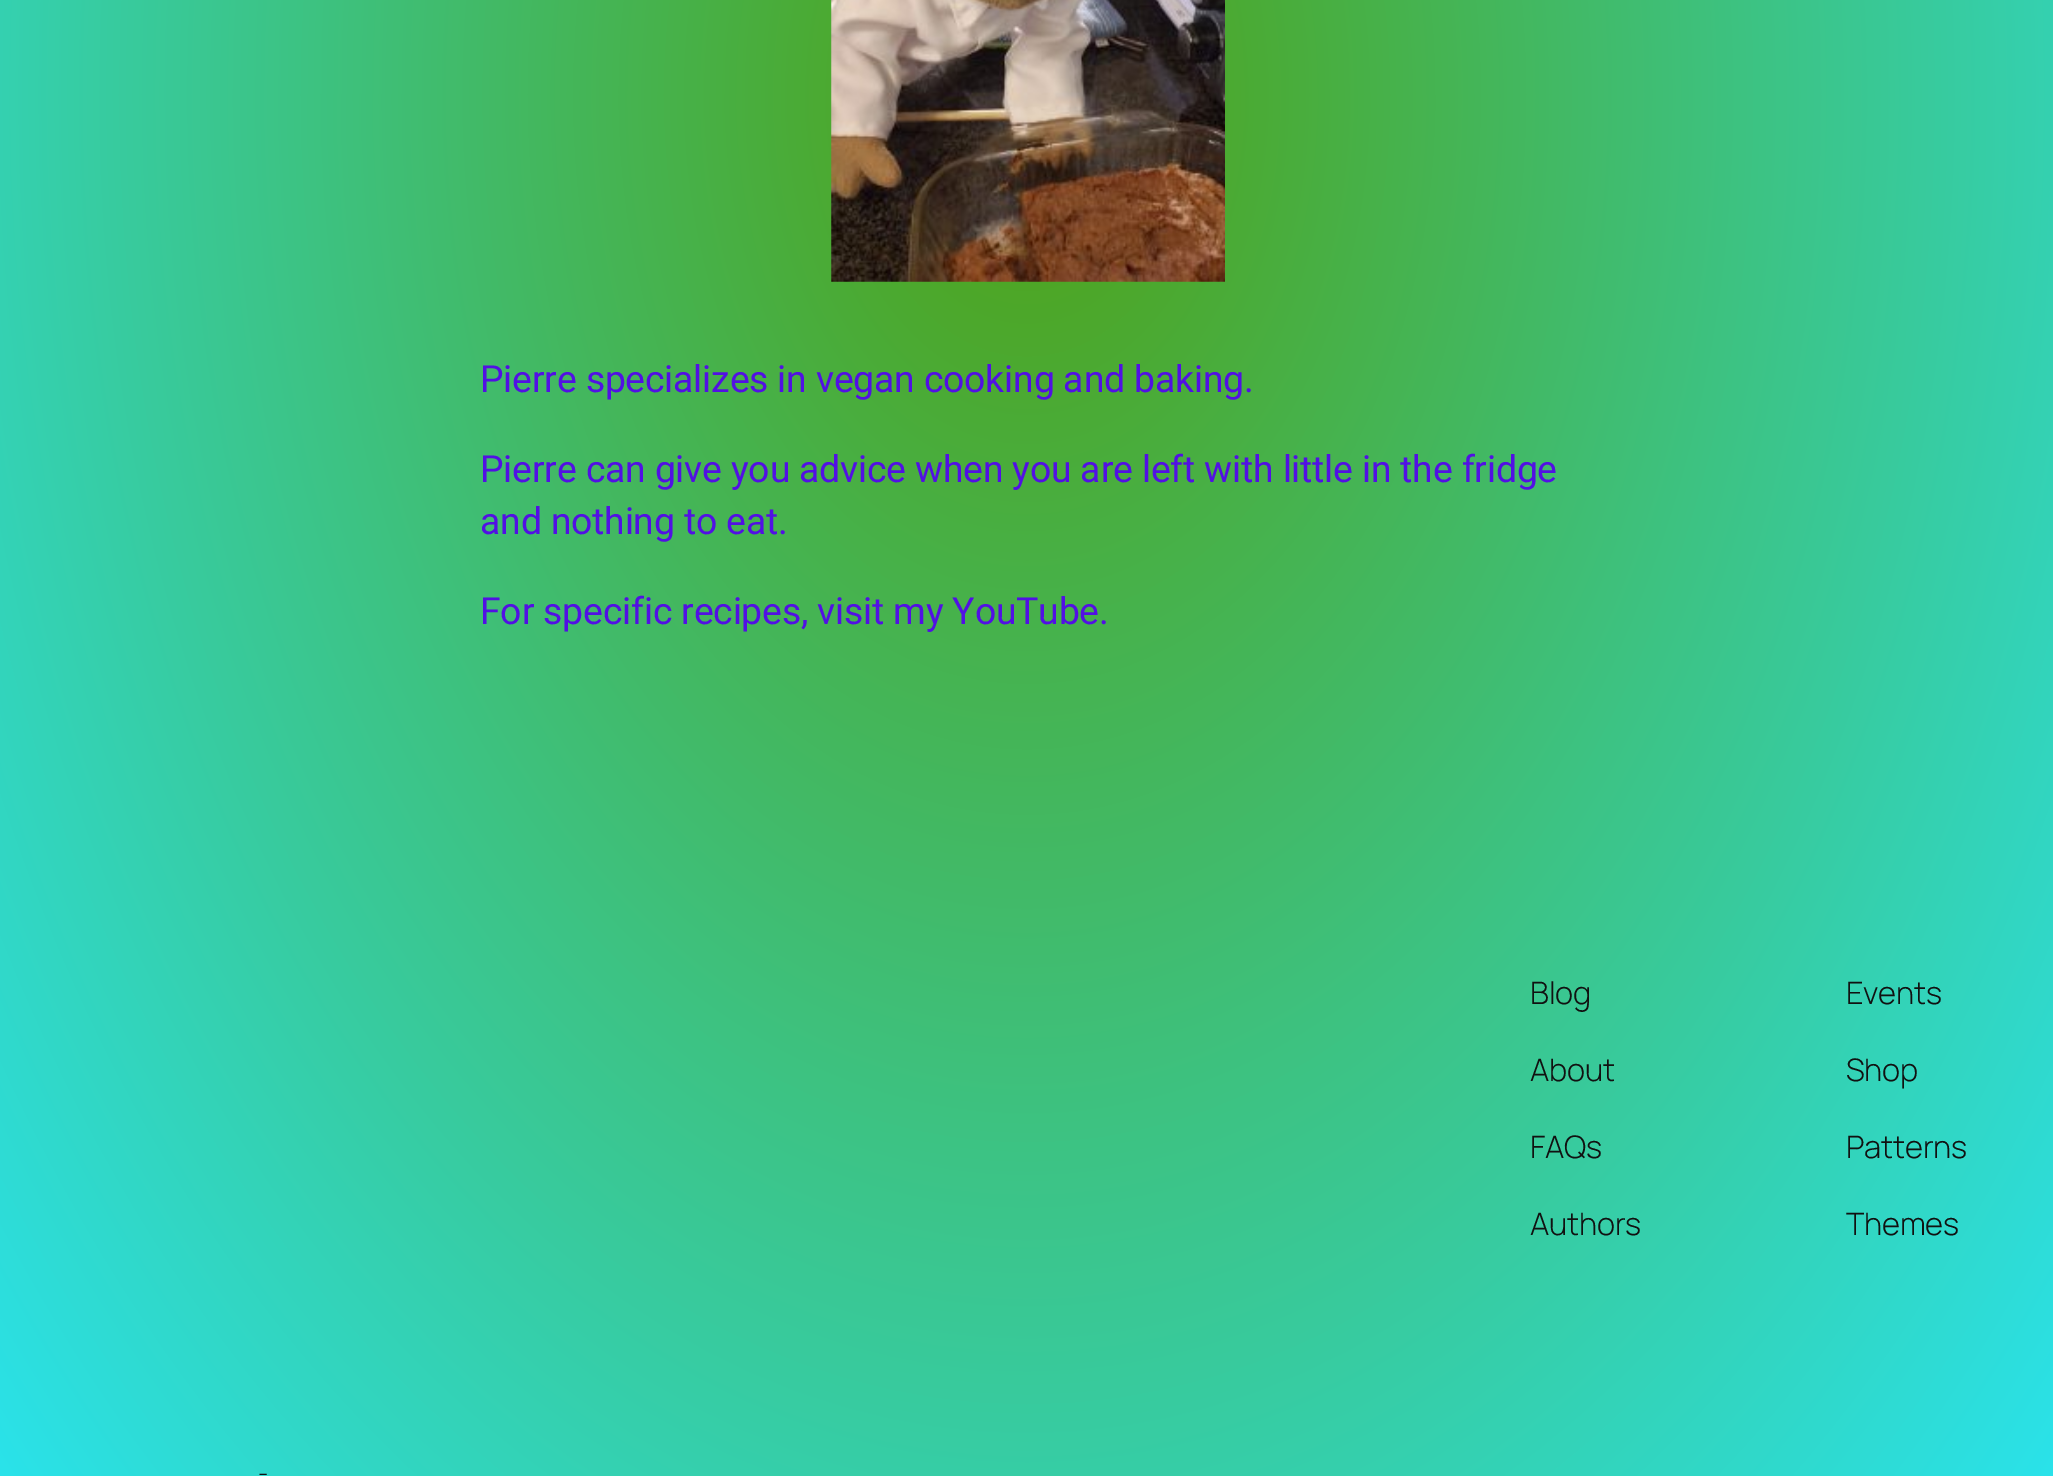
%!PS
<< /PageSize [2053 1476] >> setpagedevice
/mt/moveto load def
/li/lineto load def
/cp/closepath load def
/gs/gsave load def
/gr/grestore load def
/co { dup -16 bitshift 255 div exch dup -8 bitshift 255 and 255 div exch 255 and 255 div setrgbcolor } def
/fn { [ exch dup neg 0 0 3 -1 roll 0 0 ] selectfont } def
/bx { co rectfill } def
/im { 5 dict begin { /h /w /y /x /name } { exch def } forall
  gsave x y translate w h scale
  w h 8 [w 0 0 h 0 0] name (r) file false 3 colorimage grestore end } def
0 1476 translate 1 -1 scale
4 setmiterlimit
0 0 2053 1476 16#FFFFFF bx
gs 0 0 mt 2053 0 li 2053 1476 li 0 1476 li cp clip newpath 1027 95 translate 1453 2095 scale
<< /ShadingType 3 /ColorSpace /DeviceRGB /Coords [0 0 0 0 0 1] /Extend [true true] /Function << /FunctionType 2 /Domain [0 1] /C0 [.318 .631 .075] /C1 [.161 .898 .949] /N 1 >> >> shfill gr
(media/1.raw) 831 0 394 282 im
/Roboto-Regular 37.35 fn
16#5210E4 co
480 392 mt -.18 0 (Pierre specializes in vegan cooking and baking.) ashow
480 482 mt -.18 0 (Pierre can give you advice when you are left with little in the fridge) ashow
480 534 mt -.18 0 (and nothing to eat.) ashow
480 624 mt -.18 0 (For specific recipes, visit my YouTube.) ashow
/Manrope-Light 31 fn
16#111111 co
1530 1004 mt -.18 0 (Blog) ashow
1530 1081 mt -.18 0 (About) ashow
1530 1158 mt -.18 0 (FAQs) ashow
1530 1235 mt -.18 0 (Authors) ashow
1846 1004 mt -.18 0 (Events) ashow
1846 1081 mt -.18 0 (Shop) ashow
1846 1158 mt -.18 0 (Patterns) ashow
1846 1235 mt -.18 0 (Themes) ashow
/Manrope-Light 24 fn
258 1482 mt -.18 0 (-) ashow
showpage
